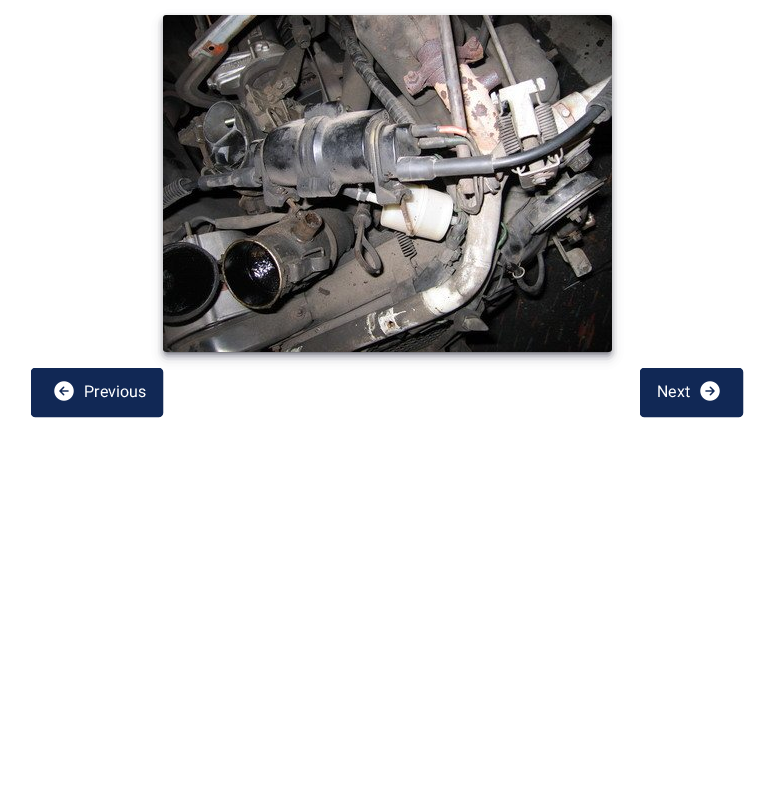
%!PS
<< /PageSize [774 805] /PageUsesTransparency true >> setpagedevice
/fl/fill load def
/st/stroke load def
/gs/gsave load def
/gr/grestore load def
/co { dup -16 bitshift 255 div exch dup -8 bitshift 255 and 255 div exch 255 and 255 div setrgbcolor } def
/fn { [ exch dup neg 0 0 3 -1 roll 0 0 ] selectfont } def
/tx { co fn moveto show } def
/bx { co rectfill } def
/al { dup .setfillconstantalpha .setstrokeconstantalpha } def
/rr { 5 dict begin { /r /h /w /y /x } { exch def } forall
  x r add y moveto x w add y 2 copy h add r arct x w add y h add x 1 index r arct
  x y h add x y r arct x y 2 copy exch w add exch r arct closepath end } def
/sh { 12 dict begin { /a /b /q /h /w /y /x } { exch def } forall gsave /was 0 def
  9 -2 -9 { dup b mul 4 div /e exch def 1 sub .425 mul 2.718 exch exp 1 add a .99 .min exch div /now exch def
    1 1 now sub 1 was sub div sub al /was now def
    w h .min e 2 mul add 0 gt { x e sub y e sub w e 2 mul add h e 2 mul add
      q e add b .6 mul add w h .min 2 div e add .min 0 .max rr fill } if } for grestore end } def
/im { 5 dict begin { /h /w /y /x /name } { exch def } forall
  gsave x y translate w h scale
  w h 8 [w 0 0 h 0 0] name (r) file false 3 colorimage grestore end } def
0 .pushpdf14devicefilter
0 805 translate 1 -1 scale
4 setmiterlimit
0 0 774 805 16#FFFFFF bx
16#112855 co
31.5 368.5 131 48 3.5 rr gs fl gr
st
16#32325D co
165 23 445 333 1 6 .4 sh
16#000000 co
166 21 443 331 0 3.5 .7 sh
(media/1.raw) 163 15 449 337 im
(media/2.raw) 54 381 20 20 im
16#112855 co
640.5 368.5 102 48 3.5 rr gs fl gr
st
(media/3.raw) 700 381 20 20 im
(Previous) 84 397 /Roboto-Regular 16 16#FFFFFF tx
(Next) 657 397 /Roboto-Regular 16 16#FFFFFF tx
.poppdf14devicefilter showpage
